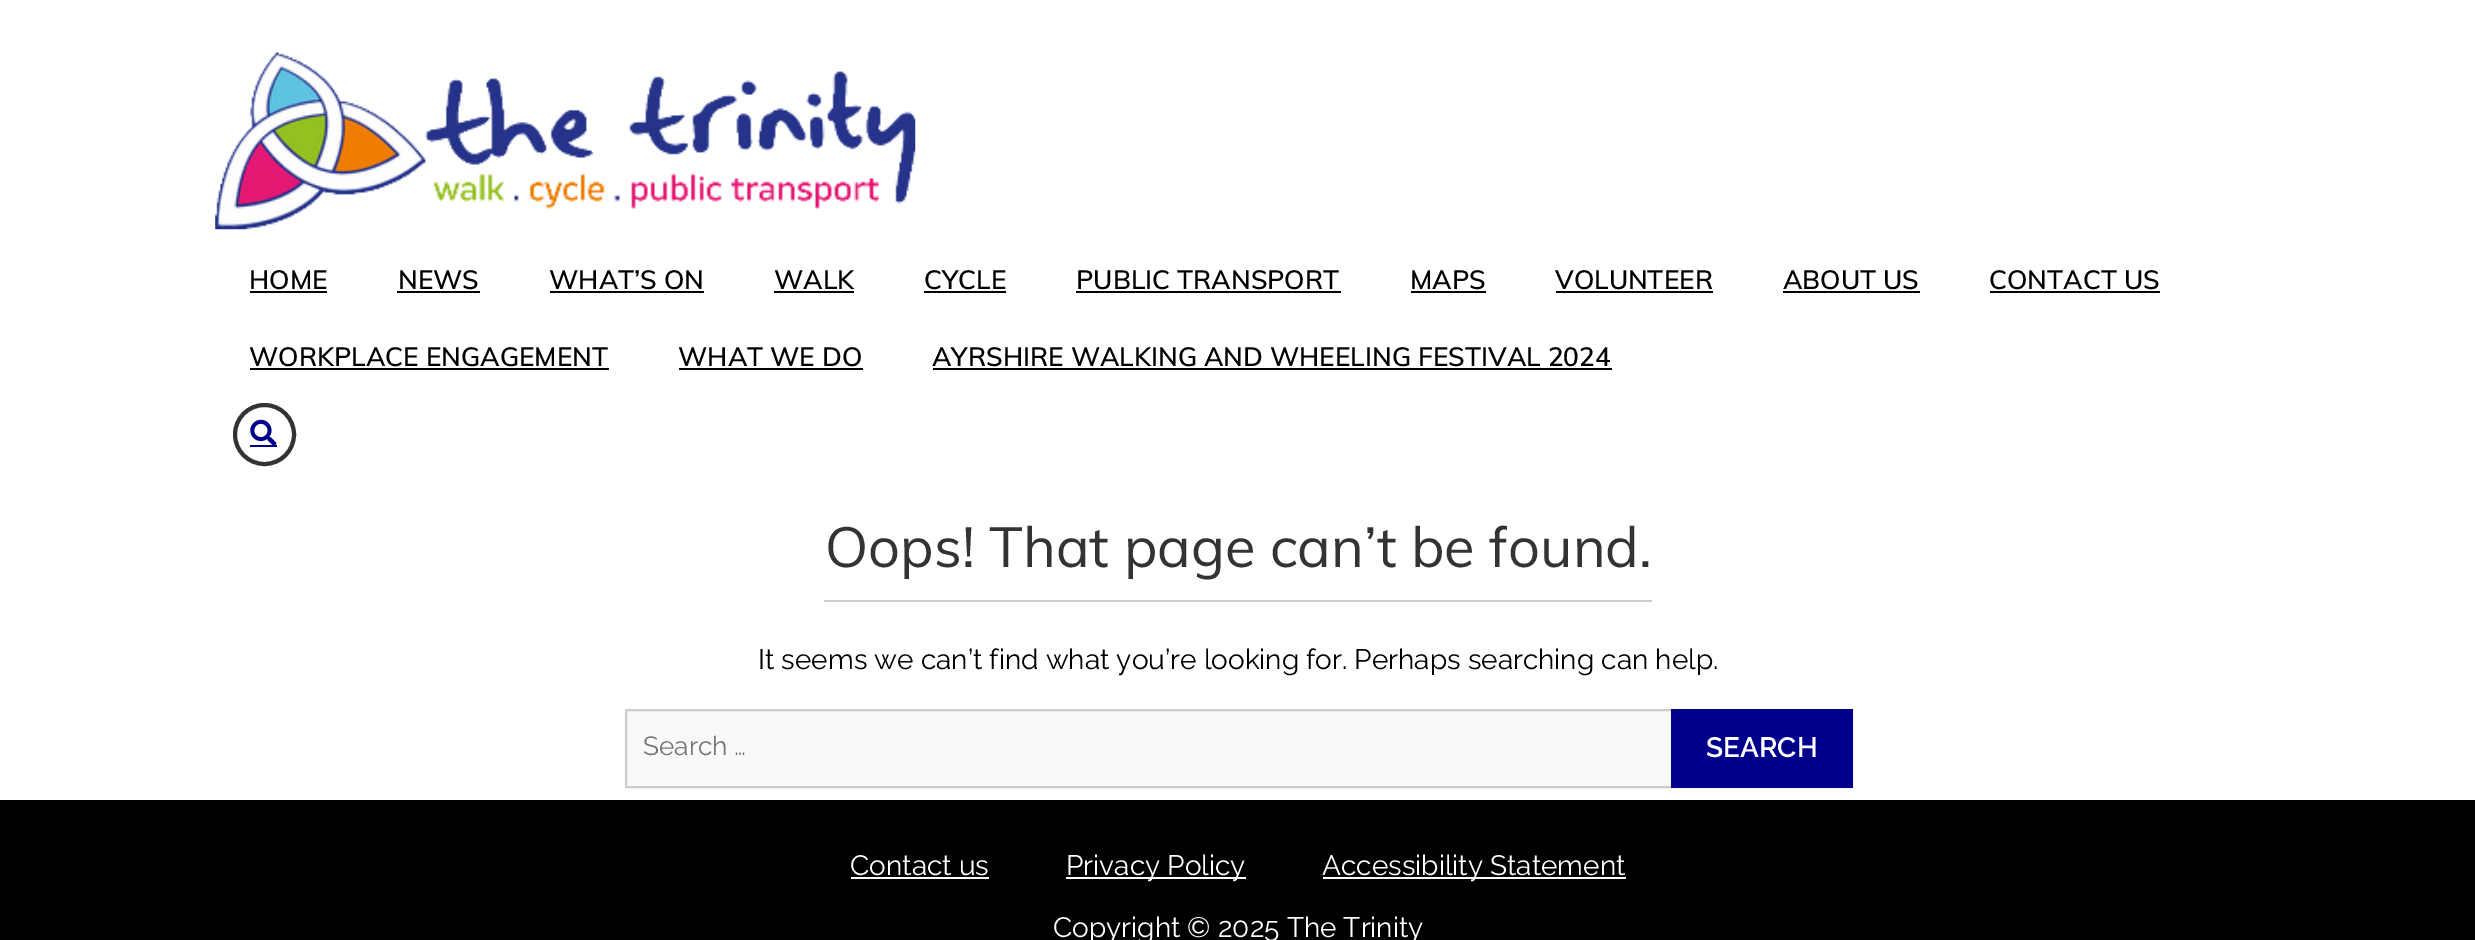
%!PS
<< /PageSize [2475 940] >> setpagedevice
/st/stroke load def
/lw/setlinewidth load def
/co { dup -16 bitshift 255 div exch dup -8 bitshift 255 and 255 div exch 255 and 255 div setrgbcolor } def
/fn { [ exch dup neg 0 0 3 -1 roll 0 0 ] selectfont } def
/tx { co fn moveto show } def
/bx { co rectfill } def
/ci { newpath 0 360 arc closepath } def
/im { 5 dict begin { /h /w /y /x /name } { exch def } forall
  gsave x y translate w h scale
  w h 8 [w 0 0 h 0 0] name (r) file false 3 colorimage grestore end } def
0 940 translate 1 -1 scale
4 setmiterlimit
0 0 2475 940 16#FFFFFF bx
(media/1.raw) 215 52 701 178 im
250 291 77 2 16#000000 bx
397 291 83 2 16#000000 bx
550 291 154 2 16#000000 bx
774 291 80 2 16#000000 bx
924 291 82 2 16#000000 bx
1076 291 265 2 16#000000 bx
1411 291 75 2 16#000000 bx
1556 291 157 2 16#000000 bx
1783 291 137 2 16#000000 bx
1990 291 170 2 16#000000 bx
250 368 359 2 16#000000 bx
679 368 184 2 16#000000 bx
933 368 679 2 16#000000 bx
16#333333 co
4 lw
264.5 434.5 29.5 ci st
(media/2.raw) 250 419 27 26 im
250 445 27 2 16#00008B bx
824 600 828 2 16#CCCCCC bx
627 711 1044 75 16#F9F9F9 bx
16#CCCCCC co
2 lw
626 710 1226 77 rectstroke
1671 709 182 79 16#00008B bx
0 800 2475 140 16#000000 bx
851 877 138 2 16#FFFFFF bx
1066 877 180 2 16#FFFFFF bx
1323 877 303 2 16#FFFFFF bx
(HOME) 249 289 /Muli-SemiBold 26.25 16#000000 tx
(NEWS) 398 289 /Muli-SemiBold 26.25 16#000000 tx
(WHAT’S ON) 549 289 /Muli-SemiBold 26.25 16#000000 tx
(WALK) 774 289 /Muli-SemiBold 26.25 16#000000 tx
(CYCLE) 924 289 /Muli-SemiBold 26.25 16#000000 tx
(PUBLIC TRANSPORT) 1076 289 /Muli-SemiBold 26.25 16#000000 tx
(MAPS) 1410 289 /Muli-SemiBold 26.25 16#000000 tx
(VOLUNTEER) 1555 289 /Muli-SemiBold 26.25 16#000000 tx
(ABOUT US) 1783 289 /Muli-SemiBold 26.25 16#000000 tx
(CONTACT US) 1989 289 /Muli-SemiBold 26.25 16#000000 tx
(WORKPLACE ENGAGEMENT) 249 366 /Muli-SemiBold 26.25 16#000000 tx
(WHAT WE DO) 678 366 /Muli-SemiBold 26.25 16#000000 tx
(AYRSHIRE WALKING AND WHEELING FESTIVAL 2024) 932 366 /Muli-SemiBold 26.25 16#000000 tx
(Oops! That page can’t be found.) 825 567 /Muli-Regular 56 16#333333 tx
(It seems we can’t find what you’re looking for. Perhaps searching can help.) 758 669 /Raleway-Regular 28 16#000000 tx
(Search …) 643 755 /Raleway-Regular 26.25 16#757575 tx
(SEARCH) 1706 757 /Raleway-SemiBold 28 16#FFFFFF tx
(Contact us) 850 875 /Raleway-Regular 28 16#FFFFFF tx
(Privacy Policy) 1066 875 /Raleway-Regular 28 16#FFFFFF tx
(Accessibility Statement) 1322 875 /Raleway-Regular 28 16#FFFFFF tx
(Copyright © 2025 The Trinity) 1053 937 /Raleway-Regular 28 16#FFFFFF tx
showpage
